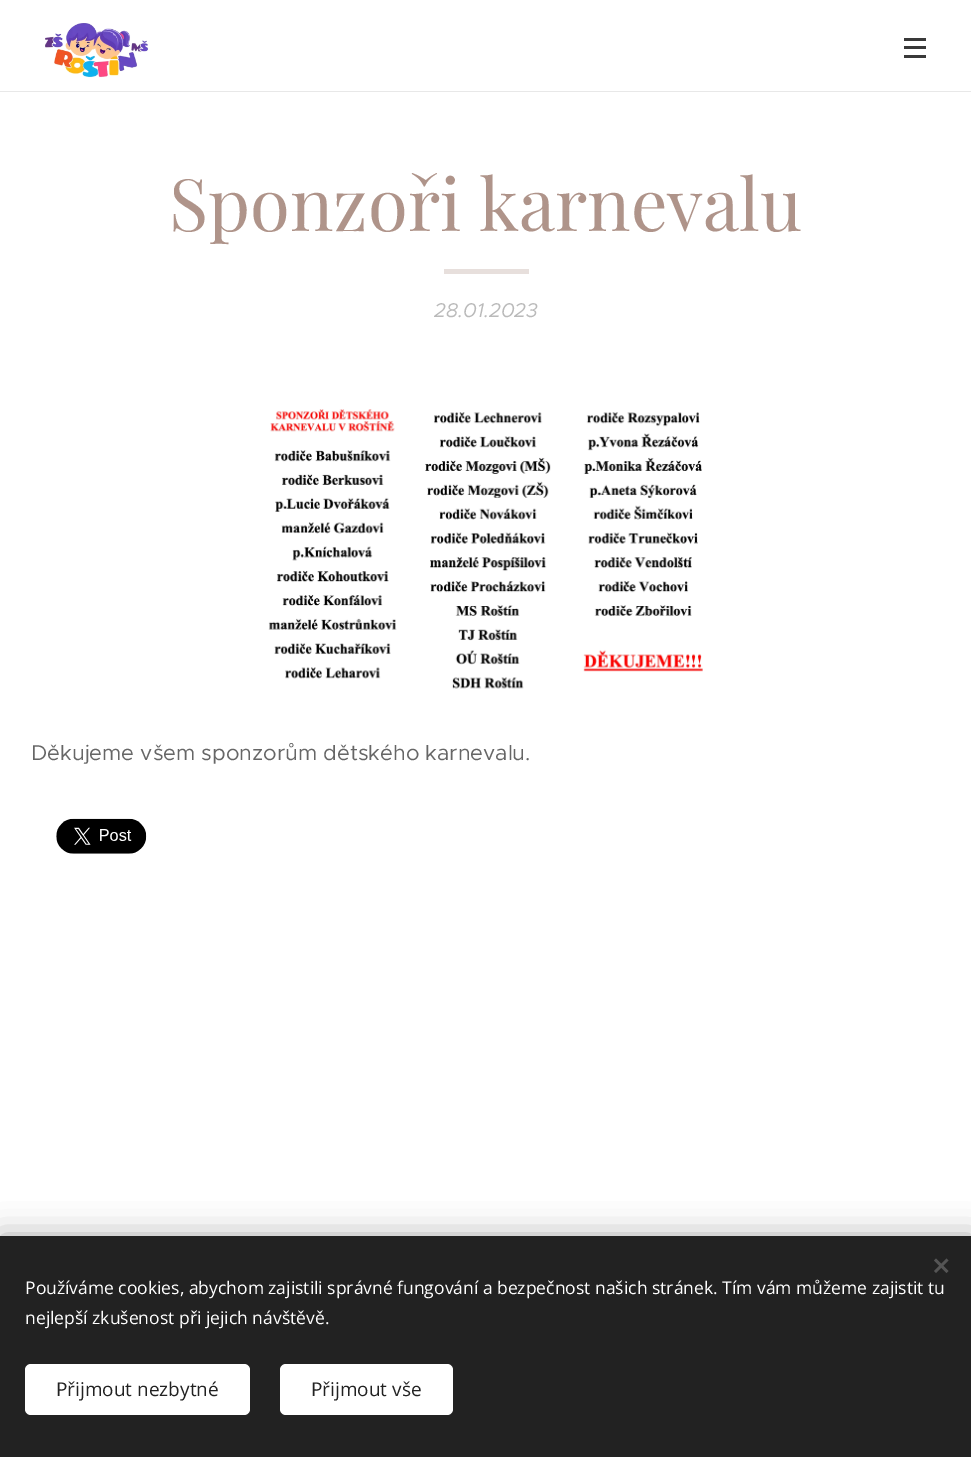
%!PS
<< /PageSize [971 1457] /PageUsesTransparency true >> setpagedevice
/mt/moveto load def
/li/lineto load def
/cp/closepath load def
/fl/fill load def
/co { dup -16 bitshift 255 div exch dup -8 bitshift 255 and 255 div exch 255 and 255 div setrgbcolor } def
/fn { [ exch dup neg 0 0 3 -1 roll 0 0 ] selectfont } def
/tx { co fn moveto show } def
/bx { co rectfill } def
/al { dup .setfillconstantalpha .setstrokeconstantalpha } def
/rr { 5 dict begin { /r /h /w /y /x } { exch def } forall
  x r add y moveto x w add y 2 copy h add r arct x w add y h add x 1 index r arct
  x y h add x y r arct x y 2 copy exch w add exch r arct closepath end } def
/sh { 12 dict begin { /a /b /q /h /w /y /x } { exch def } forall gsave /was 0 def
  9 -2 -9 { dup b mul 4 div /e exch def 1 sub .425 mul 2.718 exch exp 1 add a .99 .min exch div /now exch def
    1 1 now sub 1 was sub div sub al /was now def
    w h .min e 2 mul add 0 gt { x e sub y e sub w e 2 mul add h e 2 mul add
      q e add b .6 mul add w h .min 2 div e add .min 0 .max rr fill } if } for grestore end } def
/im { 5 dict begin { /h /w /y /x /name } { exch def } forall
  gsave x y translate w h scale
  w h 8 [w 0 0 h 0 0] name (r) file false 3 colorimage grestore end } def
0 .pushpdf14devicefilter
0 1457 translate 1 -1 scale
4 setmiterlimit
0 0 971 1457 16#FFFFFF bx
(media/1.raw) 45 23 104 55 im
904 46 22 3 16#393939 bx
904 38 22 3 16#393939 bx
904 55 22 3 16#393939 bx
0 91 971 1 16#E8E8E8 bx
444 269 85 5 16#E7DFDC bx
(media/2.raw) 268 409 435 280 im
(media/3.raw) 56 818 91 36 im
16#000000 co
0 1236 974 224 0 15.5 .33 sh
0 1236 971 221 16#222222 bx
16#555555 co
934 1271 mt 946.5 1258.5 li 948.5 1260.5 li 936 1273 li cp fl
936 1258.5 mt 948.5 1271 li 946.5 1273 li 934 1260.5 li cp fl
16#FFFFFF co
25 1364 225 51 6 rr fl
280 1364 173 51 6 rr fl
(Sponzoři karnevalu) 169 231 /PlayfairDisplay-Regular 72.5 16#AF948A tx
(28.01.2023) 434 317 /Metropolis-Italic 20 16#BABABA tx
(Děkujeme všem sponzorům dětského karnevalu.) 31 760 /Metropolis-Regular 21.5 16#666666 tx
(Používáme cookies, abychom zajistili správné fungování a bezpečnost našich stránek. Tím vám můžeme zajistit tu) 25 1294 /OpenSans-Regular 17.5 16#FFFFFF tx
(nejlepší zkušenost při jejich návštěvě.) 25 1324 /OpenSans-Regular 17.5 16#FFFFFF tx
(Přijmout nezbytné) 56 1396 /OpenSans-Regular 19 16#222222 tx
(Přijmout vše) 311 1396 /OpenSans-Regular 19 16#222222 tx
.poppdf14devicefilter showpage
